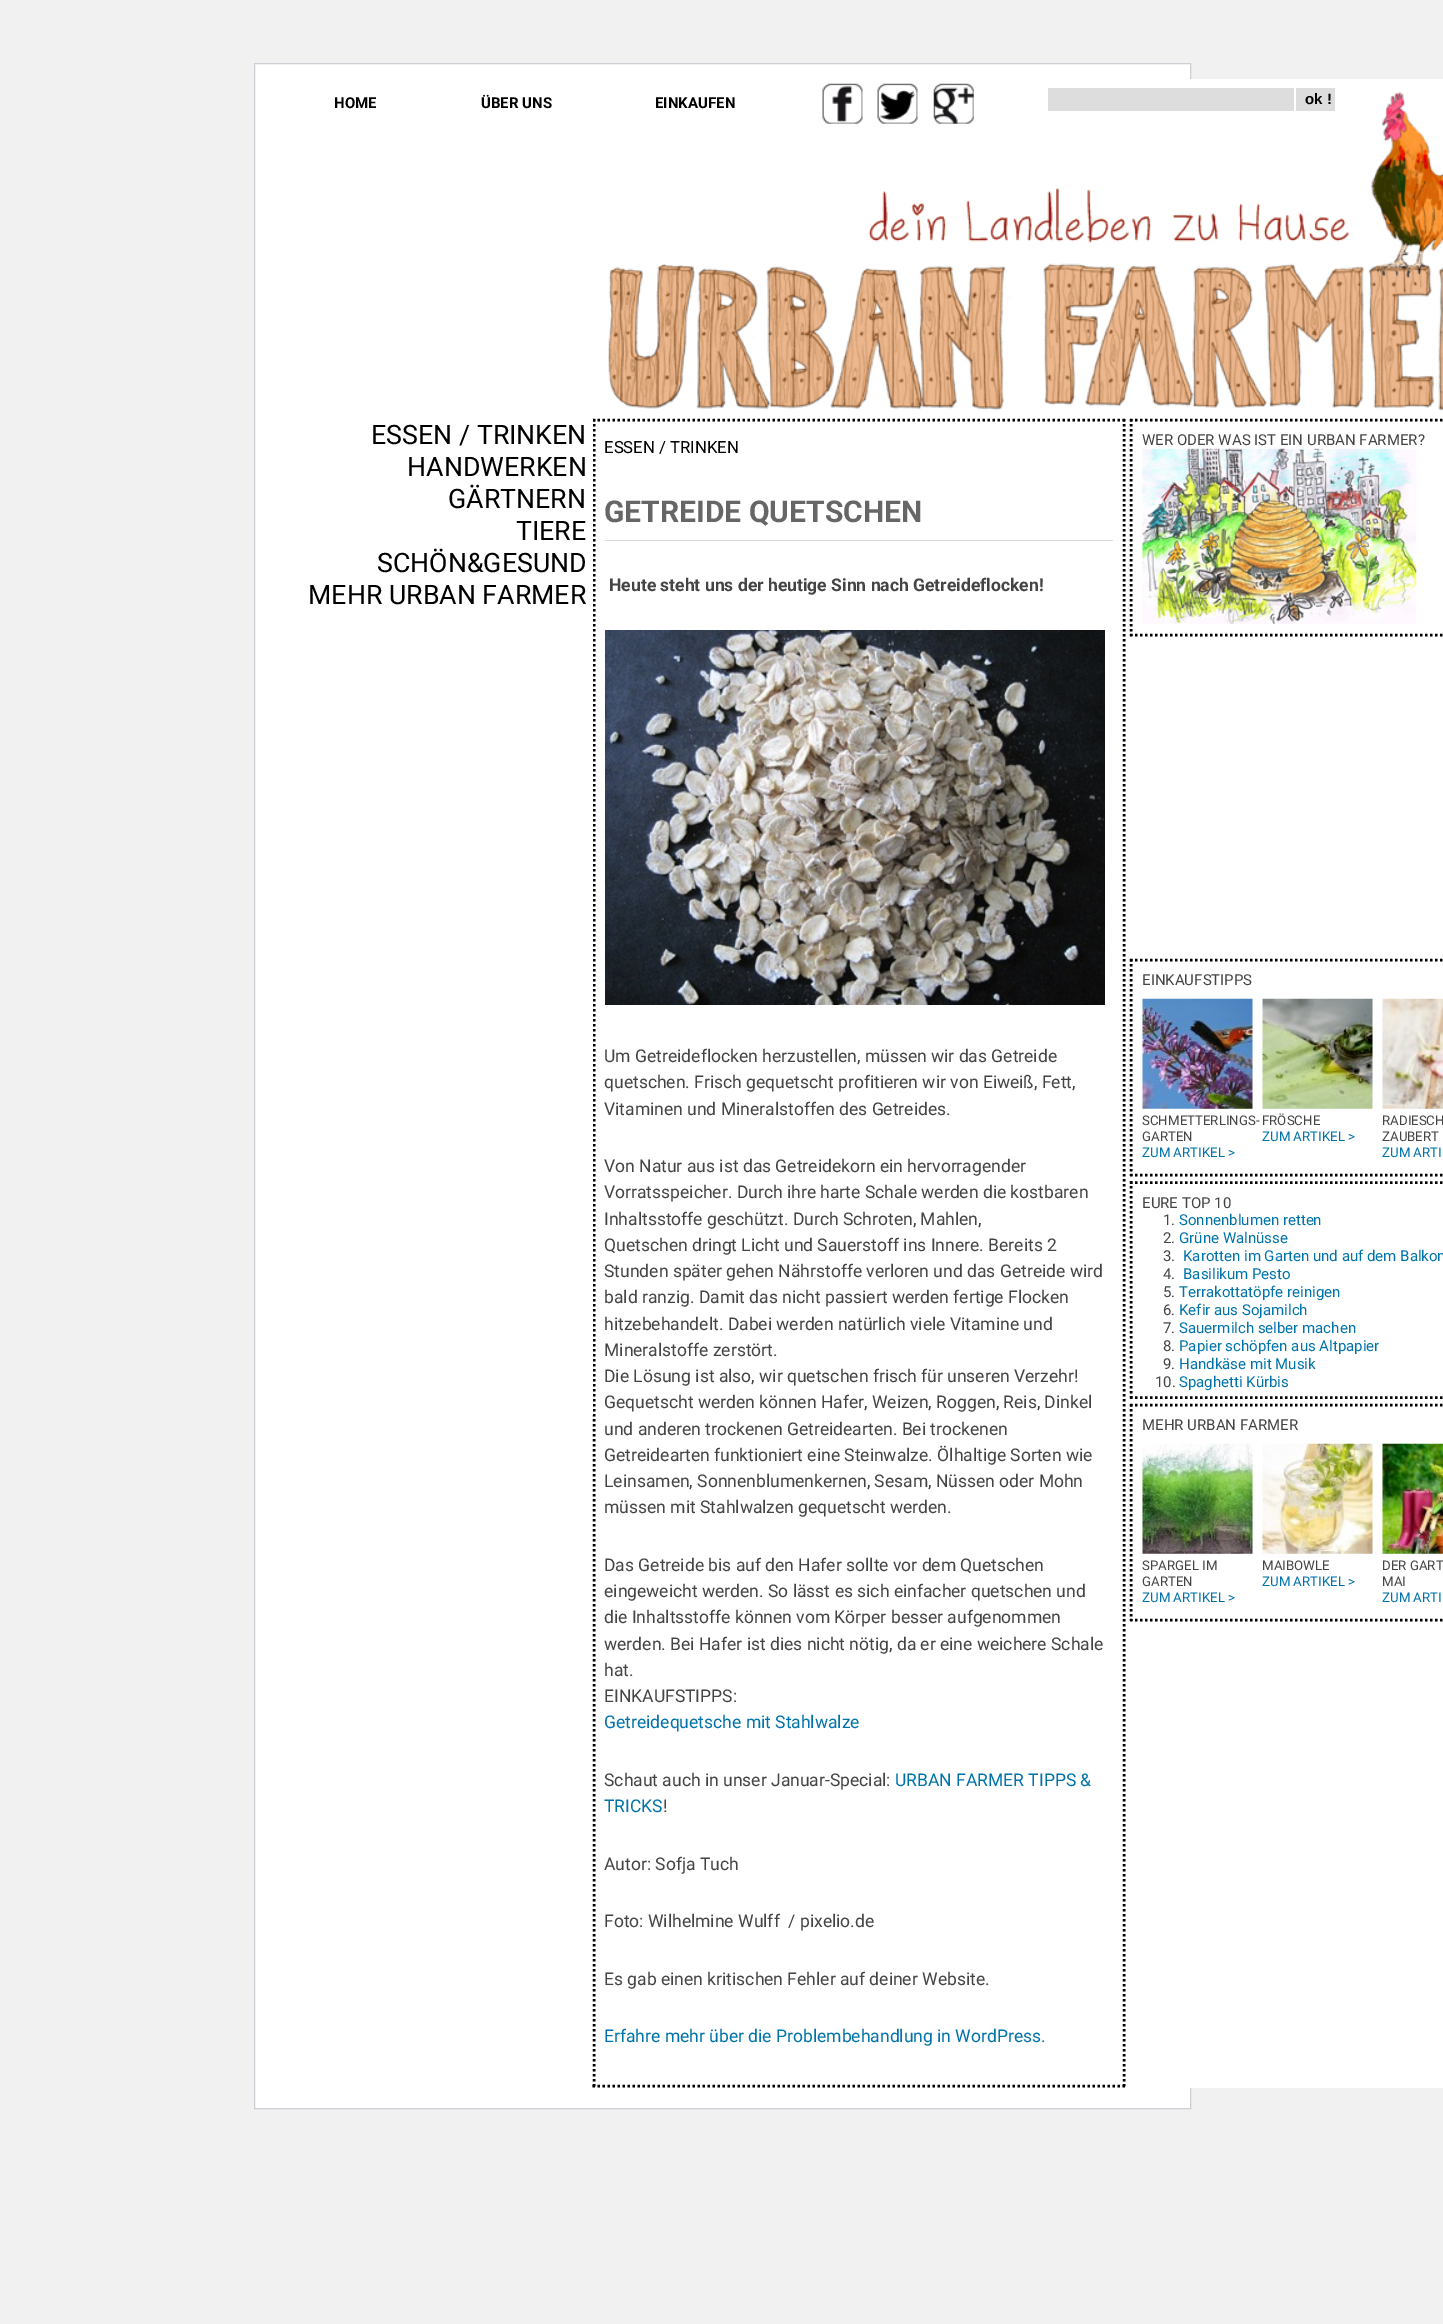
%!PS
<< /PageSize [1443 2324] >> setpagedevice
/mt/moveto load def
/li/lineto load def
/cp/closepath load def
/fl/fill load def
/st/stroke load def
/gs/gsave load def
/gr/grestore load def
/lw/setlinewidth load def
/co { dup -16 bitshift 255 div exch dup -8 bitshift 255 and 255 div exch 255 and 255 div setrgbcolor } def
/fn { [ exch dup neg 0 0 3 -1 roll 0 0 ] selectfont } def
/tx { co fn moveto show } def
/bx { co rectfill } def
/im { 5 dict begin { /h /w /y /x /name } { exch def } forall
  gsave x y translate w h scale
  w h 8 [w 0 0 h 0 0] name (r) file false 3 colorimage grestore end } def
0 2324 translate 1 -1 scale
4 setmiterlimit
0 0 1443 2324 16#F1F1F1 bx
16#FFFFFF co
254.5 63.5 mt 1190.5 63.5 li 1190.5 2108.5 li 254.5 2108.5 li cp gs fl gr
16#CCD0D4 co
st
1190 79 253 2009 16#FFFFFF bx
(media/1.raw) 822 83 41 41 im
(media/2.raw) 877 83 41 41 im
(media/3.raw) 933 83 41 41 im
1048 88 246 23 16#DDDDDD bx
1296 88 39 23 16#DDDDDD bx
(media/4.raw) 1371 92 72 162 im
(media/5.raw) 868 188 481 55 im
(media/6.raw) 608 253 835 158 im
16#000000 co
2.5 lw
[2.5 2.5] 0 setdash
592.5 420 mt 1125 420 li st
1124 419 mt 1124 2087.5 li st
592.5 2086 mt 1125 2086 li st
594 419 mt 594 2087.5 li st
592 419 1 996 16#FFFFFF bx
605 540 508 1 16#DADADA bx
(media/7.raw) 605 630 500 375 im
16#000000 co
1130 420 mt 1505 420 li st
1130 635 mt 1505 635 li st
1131 419 mt 1131 636 li st
(media/8.raw) 1142 448 275 176 im
1130 960 mt 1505 960 li st
1130 1175 mt 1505 1175 li st
1131 959 mt 1131 1176 li st
(media/9.raw) 1142 998 111 111 im
(media/10.raw) 1262 998 111 111 im
(media/11.raw) 1382 998 61 111 im
1130 1182.5 mt 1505 1182.5 li st
1130 1397.5 mt 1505 1397.5 li st
1131 1181 mt 1131 1399 li st
1130 1405 mt 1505 1405 li st
1130 1620 mt 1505 1620 li st
1131 1404 mt 1131 1621 li st
(media/12.raw) 1142 1443 111 111 im
(media/13.raw) 1262 1443 111 111 im
(media/14.raw) 1382 1443 61 111 im
(HOME) 334 108 /Roboto-Bold 15 16#000000 tx
(ÜBER UNS) 481 108 /Roboto-Bold 15 16#000000 tx
(EINKAUFEN) 655 108 /Roboto-Bold 15 16#000000 tx
(ok !) 1305 104 /LiberationSans-Bold 15 16#000000 tx
(ESSEN / TRINKEN) 371 444 /Roboto-Regular 26.75 16#000000 tx
(HANDWERKEN) 407 476 /Roboto-Regular 26.75 16#000000 tx
(GÄRTNERN) 448 508 /Roboto-Regular 26.75 16#000000 tx
(TIERE) 516 540 /Roboto-Regular 26.75 16#000000 tx
(SCHÖN&GESUND) 377 572 /Roboto-Regular 26.75 16#000000 tx
(MEHR URBAN FARMER) 308 604 /Roboto-Regular 26.75 16#000000 tx
(ESSEN / TRINKEN) 604 453 /Roboto-Regular 16.75 16#000000 tx
(GETREIDE QUETSCHEN) 604 522 /Roboto-Bold 30 16#666666 tx
(Heute steht uns der heutige Sinn nach Getreideflocken!) 609 591 /Roboto-Bold 17.5 16#444444 tx
(Um Getreideflocken herzustellen, müssen wir das Getreide) 604 1062 /Roboto-Regular 17.5 16#444444 tx
(quetschen. Frisch gequetscht profitieren wir von Eiweiß, Fett,) 604 1088 /Roboto-Regular 17.5 16#444444 tx
(Vitaminen und Mineralstoffen des Getreides.) 604 1115 /Roboto-Regular 17.5 16#444444 tx
(Von Natur aus ist das Getreidekorn ein hervorragender) 604 1172 /Roboto-Regular 17.5 16#444444 tx
(Vorratsspeicher. Durch ihre harte Schale werden die kostbaren) 604 1198 /Roboto-Regular 17.5 16#444444 tx
(Inhaltsstoffe geschützt. Durch Schroten, Mahlen,) 604 1225 /Roboto-Regular 17.5 16#444444 tx
(Quetschen dringt Licht und Sauerstoff ins Innere. Bereits 2) 604 1251 /Roboto-Regular 17.5 16#444444 tx
(Stunden später gehen Nährstoffe verloren und das Getreide wird) 604 1277 /Roboto-Regular 17.5 16#444444 tx
(bald ranzig. Damit das nicht passiert werden fertige Flocken) 604 1303 /Roboto-Regular 17.5 16#444444 tx
(hitzebehandelt. Dabei werden natürlich viele Vitamine und) 604 1330 /Roboto-Regular 17.5 16#444444 tx
(Mineralstoffe zerstört.) 604 1356 /Roboto-Regular 17.5 16#444444 tx
(Die Lösung ist also, wir quetschen frisch für unseren Verzehr!) 604 1382 /Roboto-Regular 17.5 16#444444 tx
(Gequetscht werden können Hafer, Weizen, Roggen, Reis, Dinkel) 604 1408 /Roboto-Regular 17.5 16#444444 tx
(und anderen trockenen Getreidearten. Bei trockenen) 604 1435 /Roboto-Regular 17.5 16#444444 tx
(Getreidearten funktioniert eine Steinwalze. Ölhaltige Sorten wie) 604 1461 /Roboto-Regular 17.5 16#444444 tx
(Leinsamen, Sonnenblumenkernen, Sesam, Nüssen oder Mohn) 604 1487 /Roboto-Regular 17.5 16#444444 tx
(müssen mit Stahlwalzen gequetscht werden.) 604 1513 /Roboto-Regular 17.5 16#444444 tx
(Das Getreide bis auf den Hafer sollte vor dem Quetschen) 604 1571 /Roboto-Regular 17.5 16#444444 tx
(eingeweicht werden. So lässt es sich einfacher quetschen und) 604 1597 /Roboto-Regular 17.5 16#444444 tx
(die Inhaltsstoffe können vom Körper besser aufgenommen) 604 1623 /Roboto-Regular 17.5 16#444444 tx
(werden. Bei Hafer ist dies nicht nötig, da er eine weichere Schale) 604 1650 /Roboto-Regular 17.5 16#444444 tx
(hat.) 604 1676 /Roboto-Regular 17.5 16#444444 tx
(EINKAUFSTIPPS:) 604 1702 /Roboto-Regular 17.5 16#444444 tx
(Getreidequetsche mit Stahlwalze) 604 1728 /Roboto-Regular 17.5 16#0073AA tx
(Schaut auch in unser Januar-Special:) 604 1786 /Roboto-Regular 17.5 16#444444 tx
(URBAN FARMER TIPPS &) 895 1786 /Roboto-Regular 17.5 16#0073AA tx
(TRICKS) 604 1812 /Roboto-Regular 17.5 16#0073AA tx
(!) 663 1812 /Roboto-Regular 17.5 16#444444 tx
(Autor: Sofja Tuch) 604 1870 /Roboto-Regular 17.5 16#444444 tx
(Foto: Wilhelmine Wulff  / pixelio.de) 604 1927 /Roboto-Regular 17.5 16#444444 tx
(Es gab einen kritischen Fehler auf deiner Website.) 604 1985 /Roboto-Regular 17.5 16#444444 tx
(Erfahre mehr über die Problembehandlung in WordPress.) 604 2042 /Roboto-Regular 17.5 16#0073AA tx
(WER ODER WAS IST EIN URBAN FARMER?) 1142 445 /Roboto-Regular 15 16#444444 tx
(EINKAUFSTIPPS) 1142 985 /Roboto-Regular 15 16#444444 tx
(SCHMETTERLINGS-) 1142 1125 /Roboto-Regular 13.25 16#444444 tx
(GARTEN) 1142 1141 /Roboto-Regular 13.25 16#444444 tx
(ZUM ARTIKEL >) 1142 1157 /Roboto-Regular 13.25 16#0073AA tx
(FRÖSCHE) 1262 1125 /Roboto-Regular 13.25 16#444444 tx
(ZUM ARTIKEL >) 1262 1141 /Roboto-Regular 13.25 16#0073AA tx
(RADIESCH) 1382 1125 /Roboto-Regular 13.25 16#444444 tx
(ZAUBERT) 1382 1141 /Roboto-Regular 13.25 16#444444 tx
(ZUM ARTI) 1382 1157 /Roboto-Regular 13.25 16#0073AA tx
(EURE TOP 10) 1142 1208 /Roboto-Regular 15 16#444444 tx
(1.) 1163 1225 /Roboto-Regular 15 16#444444 tx
(Sonnenblumen retten) 1179 1225 /Roboto-Regular 15 16#0073AA tx
(2.) 1163 1243 /Roboto-Regular 15 16#444444 tx
(Grüne Walnüsse) 1179 1243 /Roboto-Regular 15 16#0073AA tx
(3.) 1163 1261 /Roboto-Regular 15 16#444444 tx
(Karotten im Garten und auf dem Balkon) 1183 1261 /Roboto-Regular 15 16#0073AA tx
(4.) 1163 1279 /Roboto-Regular 15 16#444444 tx
(Basilikum Pesto) 1183 1279 /Roboto-Regular 15 16#0073AA tx
(5.) 1163 1297 /Roboto-Regular 15 16#444444 tx
(Terrakottatöpfe reinigen) 1179 1297 /Roboto-Regular 15 16#0073AA tx
(6.) 1163 1315 /Roboto-Regular 15 16#444444 tx
(Kefir aus Sojamilch) 1179 1315 /Roboto-Regular 15 16#0073AA tx
(7.) 1163 1333 /Roboto-Regular 15 16#444444 tx
(Sauermilch selber machen) 1179 1333 /Roboto-Regular 15 16#0073AA tx
(8.) 1163 1351 /Roboto-Regular 15 16#444444 tx
(Papier schöpfen aus Altpapier) 1179 1351 /Roboto-Regular 15 16#0073AA tx
(9.) 1163 1369 /Roboto-Regular 15 16#444444 tx
(Handkäse mit Musik) 1179 1369 /Roboto-Regular 15 16#0073AA tx
(10.) 1155 1387 /Roboto-Regular 15 16#444444 tx
(Spaghetti Kürbis) 1179 1387 /Roboto-Regular 15 16#0073AA tx
(MEHR URBAN FARMER) 1142 1430 /Roboto-Regular 15 16#444444 tx
(SPARGEL IM) 1142 1570 /Roboto-Regular 13.25 16#444444 tx
(GARTEN) 1142 1586 /Roboto-Regular 13.25 16#444444 tx
(ZUM ARTIKEL >) 1142 1602 /Roboto-Regular 13.25 16#0073AA tx
(MAIBOWLE) 1262 1570 /Roboto-Regular 13.25 16#444444 tx
(ZUM ARTIKEL >) 1262 1586 /Roboto-Regular 13.25 16#0073AA tx
(DER GART) 1382 1570 /Roboto-Regular 13.25 16#444444 tx
(MAI) 1382 1586 /Roboto-Regular 13.25 16#444444 tx
(ZUM ARTI) 1382 1602 /Roboto-Regular 13.25 16#0073AA tx
showpage
